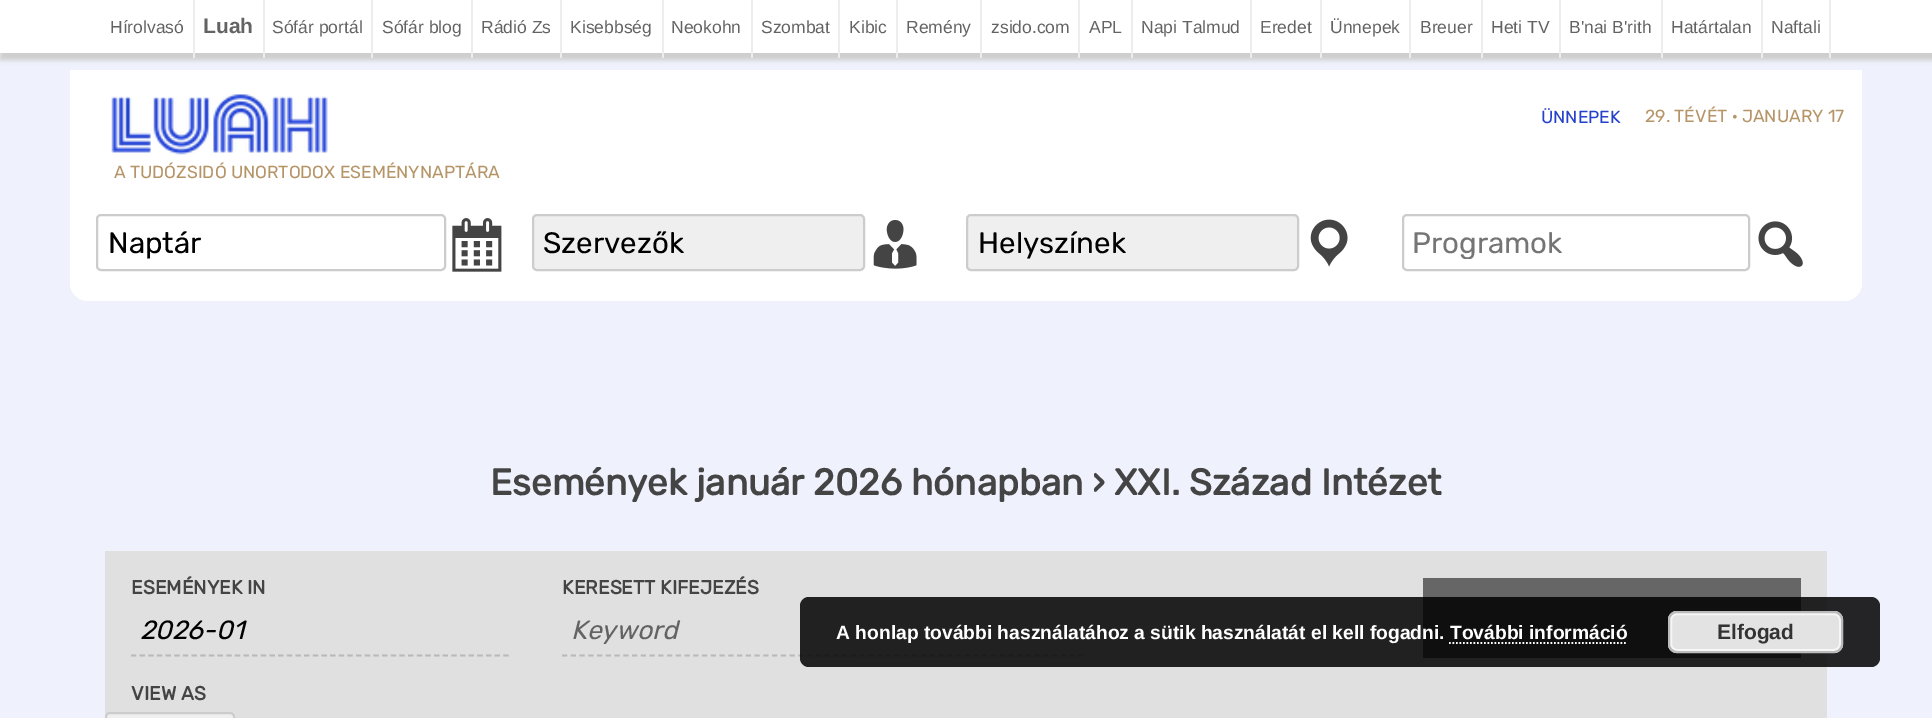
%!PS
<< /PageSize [1932 718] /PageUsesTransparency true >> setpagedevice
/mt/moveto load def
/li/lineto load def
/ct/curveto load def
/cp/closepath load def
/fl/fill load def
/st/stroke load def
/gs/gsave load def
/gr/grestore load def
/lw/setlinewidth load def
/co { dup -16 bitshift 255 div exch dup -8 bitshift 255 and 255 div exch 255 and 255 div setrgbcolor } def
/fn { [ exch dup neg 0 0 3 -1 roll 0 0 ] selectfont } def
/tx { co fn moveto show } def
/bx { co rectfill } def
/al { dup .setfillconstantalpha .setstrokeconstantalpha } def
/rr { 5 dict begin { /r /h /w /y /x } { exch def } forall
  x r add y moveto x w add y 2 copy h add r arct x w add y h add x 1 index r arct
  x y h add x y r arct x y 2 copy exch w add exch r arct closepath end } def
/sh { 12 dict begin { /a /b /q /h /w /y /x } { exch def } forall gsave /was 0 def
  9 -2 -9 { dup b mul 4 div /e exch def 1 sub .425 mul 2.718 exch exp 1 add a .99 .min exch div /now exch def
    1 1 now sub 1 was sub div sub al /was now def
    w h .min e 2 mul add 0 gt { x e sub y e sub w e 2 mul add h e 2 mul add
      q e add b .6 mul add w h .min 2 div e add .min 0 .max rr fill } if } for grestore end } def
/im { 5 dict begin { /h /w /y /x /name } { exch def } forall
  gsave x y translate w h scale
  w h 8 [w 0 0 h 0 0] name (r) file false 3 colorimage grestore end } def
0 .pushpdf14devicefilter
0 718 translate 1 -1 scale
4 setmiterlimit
0 0 1932 718 16#EFF1FD bx
16#CCCCCC co
0 0 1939 60 0 2.5 1 sh
0 0 1932 53 16#FFFFFF bx
193 0 2 58 16#EDEDED bx
263 0 2 58 16#EDEDED bx
371 0 2 58 16#EDEDED bx
471 0 2 58 16#EDEDED bx
560 0 2 58 16#EDEDED bx
662 0 2 58 16#EDEDED bx
751 0 2 58 16#EDEDED bx
838 0 2 58 16#EDEDED bx
896 0 2 58 16#EDEDED bx
980 0 2 58 16#EDEDED bx
1078 0 2 58 16#EDEDED bx
1131 0 2 58 16#EDEDED bx
1250 0 2 58 16#EDEDED bx
1320 0 2 58 16#EDEDED bx
1409 0 2 58 16#EDEDED bx
1481 0 2 58 16#EDEDED bx
1559 0 2 58 16#EDEDED bx
1661 0 2 58 16#EDEDED bx
1761 0 2 58 16#EDEDED bx
1829 0 2 58 16#EDEDED bx
70 70 1792 117 16#FFFFFF bx
(media/1.raw) 111 94 217 61 im
70 187 mt 1862 187 li 1862 283 li 1862 293 1854 301 1844 301 ct 88 301 li 78 301 70 293 70 283 ct cp fl
16#CCCCCC co
2 lw
97 215 348 55 4 rr st
(media/2.raw) 452 218 50 54 im
16#EFEFEF co
533 215 331 55 4 rr gs fl gr
16#CCCCCC co
st
(media/3.raw) 873 220 44 49 im
16#EFEFEF co
967 215 331 55 4 rr gs fl gr
16#CCCCCC co
st
(media/4.raw) 1310 219 38 48 im
1403 215 346 55 4 rr st
(media/5.raw) 1758 221 45 46 im
105 551 1722 167 16#E0E0E0 bx
16#B9B9B9 co
1.8 lw
[5.25 3.41] 0 setdash
131 655.5 mt 509 655.5 li st
[5.25 3.5] 0 setdash
562 655.5 mt 1083 655.5 li st
1423 578 378 80 16#666666 bx
16#EFEFEF co
106 713 128 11 4 rr gs fl gr
16#CCCCCC co
2 lw
[] 0 setdash
st
0.85 al
16#000000 co
800 597 1080 70 9 rr fl
1 al
16#E3E3E3 co
1668 611 175 42 9 rr fl
16#F6F6F6 co
1671 614 169 36 6 rr st
16#BBBBBB co
1669 612 173 40 8 rr st
16#FFFFFF co
1.8 lw
[1.75 1.75] 0 setdash
1449 643 mt 1627.5 643 li st
(Hírolvasó) 110 33 /LiberationSans-Regular 17.5 16#636363 tx
(Luah) 203 33 /LiberationSans-Bold 21 16#636363 tx
(Sófár portál) 272 33 /LiberationSans-Regular 17.5 16#636363 tx
(Sófár blog) 382 33 /LiberationSans-Regular 17.5 16#636363 tx
(Rádió Zs) 481 33 /LiberationSans-Regular 17.5 16#636363 tx
(Kisebbség) 570 33 /LiberationSans-Regular 17.5 16#636363 tx
(Neokohn) 671 33 /LiberationSans-Regular 17.5 16#636363 tx
(Szombat) 761 33 /LiberationSans-Regular 17.5 16#636363 tx
(Kibic) 849 33 /LiberationSans-Regular 17.5 16#636363 tx
(Remény) 906 33 /LiberationSans-Regular 17.5 16#636363 tx
(zsido.com) 991 33 /LiberationSans-Regular 17.5 16#636363 tx
(APL) 1089 33 /LiberationSans-Regular 17.5 16#636363 tx
(Napi Talmud) 1141 33 /LiberationSans-Regular 17.5 16#636363 tx
(Eredet) 1260 33 /LiberationSans-Regular 17.5 16#636363 tx
(Ünnepek) 1330 33 /LiberationSans-Regular 17.5 16#636363 tx
(Breuer) 1420 33 /LiberationSans-Regular 17.5 16#636363 tx
(Heti TV) 1491 33 /LiberationSans-Regular 17.5 16#636363 tx
(B'nai B'rith) 1569 33 /LiberationSans-Regular 17.5 16#636363 tx
(Határtalan) 1671 33 /LiberationSans-Regular 17.5 16#636363 tx
(Naftali) 1771 33 /LiberationSans-Regular 17.5 16#636363 tx
(ÜNNEPEK) 1541 123 /Rubik-Light 17.5 16#2642CC tx
(29. TÉVÉT · JANUARY 17) 1645 122 /Rubik-Light 17.5 16#B59467 tx
(A TUDÓZSIDÓ UNORTODOX ESEMÉNYNAPTÁRA) 114 178 /Rubik-Light 17.5 16#B59467 tx
(Naptár) 108 253 /Rubik-Light 29.5 16#000000 tx
(Szervezők) 543 253 /Rubik-Light 29.5 16#000000 tx
(Helyszínek) 978 253 /Rubik-Light 29.5 16#000000 tx
gs
1412 224 326 35 rectclip
(Programok) 1412 253 /Rubik-Light 29.5 16#757575 tx
gr
(Események január 2026 hónapban › XXI. Század Intézet) 490 495 /Rubik-Bold 36.75 16#444444 tx
(ESEMÉNYEK IN) 131 594 /Rubik-Bold 19.25 16#444444 tx
(2026-01) 140 639 /Rubik-LightItalic 26.25 16#000000 tx
(KERESETT KIFEJEZÉS) 562 594 /Rubik-Bold 19.25 16#444444 tx
(Keyword) 571 639 /Rubik-LightItalic 26.25 16#636363 tx
(VIEW AS) 131 700 /Rubik-Bold 19.25 16#444444 tx
(A honlap további használatához a sütik használatát el kell fogadni. További információ) 836 639 /LiberationSans-Bold 19.25 16#FFFFFF tx
(Elfogad) 1717 639 /LiberationSans-Bold 21 16#333333 tx
.poppdf14devicefilter showpage
